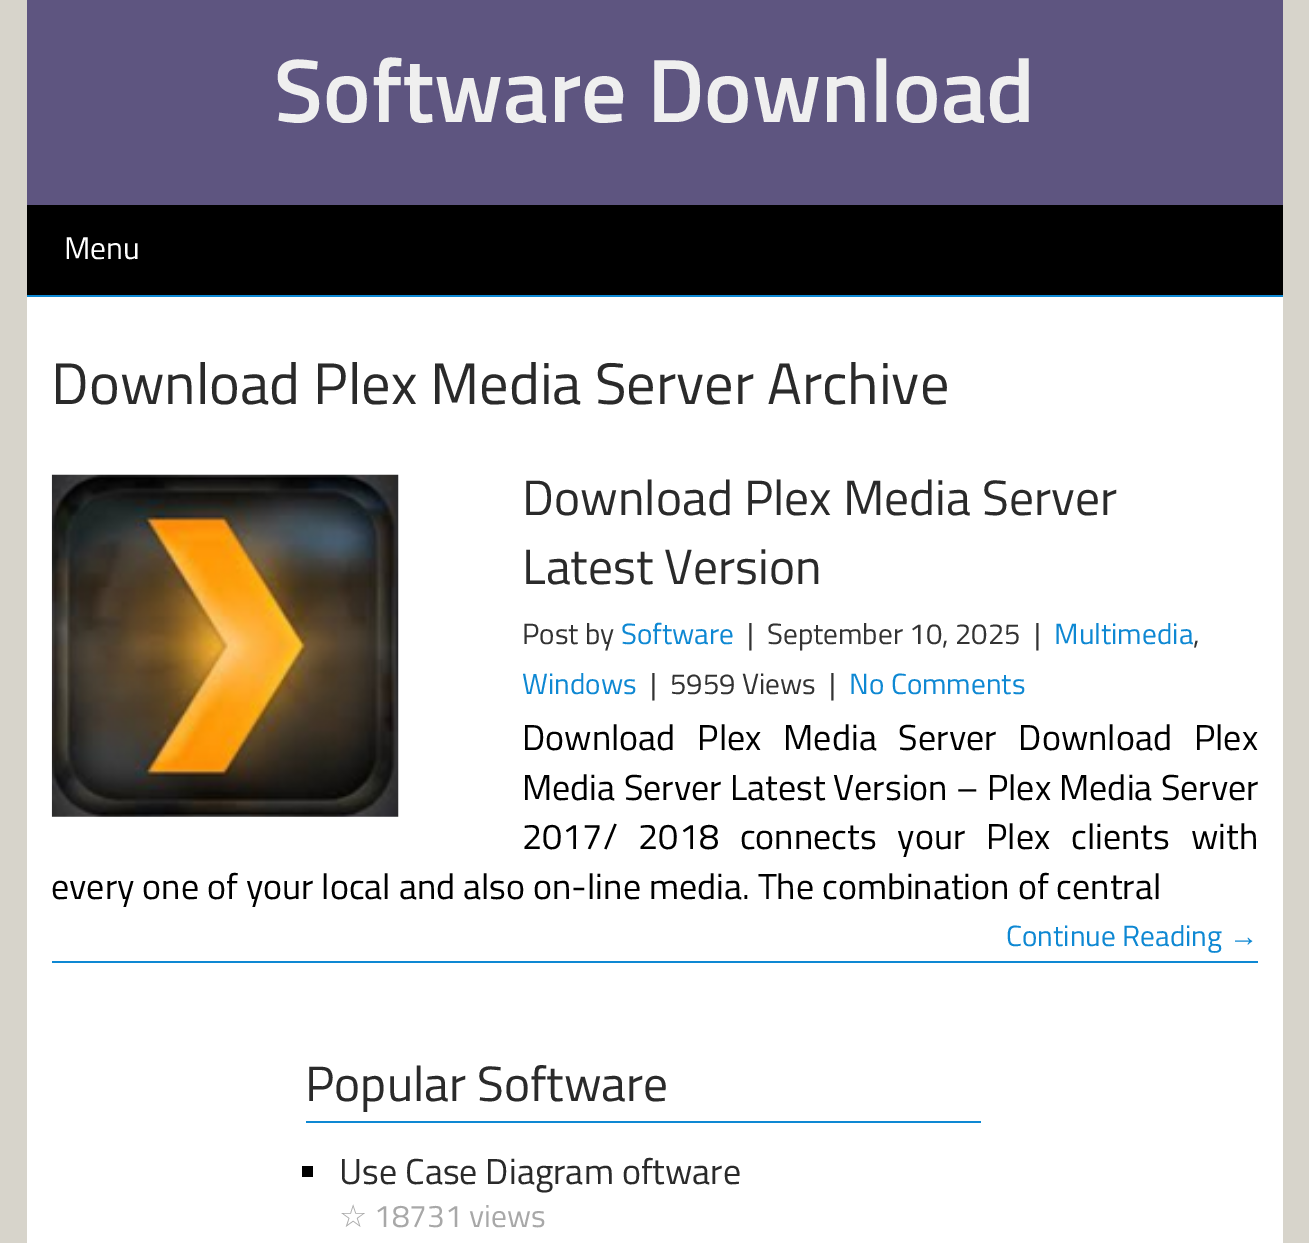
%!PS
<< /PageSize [1309 1243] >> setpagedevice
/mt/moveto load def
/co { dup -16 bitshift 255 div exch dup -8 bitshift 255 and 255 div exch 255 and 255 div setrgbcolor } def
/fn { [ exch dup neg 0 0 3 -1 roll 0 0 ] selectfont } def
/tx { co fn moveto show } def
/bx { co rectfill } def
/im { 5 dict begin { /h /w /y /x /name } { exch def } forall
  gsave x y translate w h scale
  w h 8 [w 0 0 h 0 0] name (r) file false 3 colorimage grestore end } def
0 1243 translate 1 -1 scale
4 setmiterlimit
0 0 1309 1243 16#D7D4CB bx
27 297 1256 946 16#FFFFFF bx
27 0 1256 205 16#5E5580 bx
27 295 1256 2 16#0E88D3 bx
27 205 1256 90 16#000000 bx
52 961 1206 2 16#0E88D3 bx
(media/1.raw) 51 474 348 343 im
306 1121 675 2 16#0E88D3 bx
302 1166 11 11 16#000000 bx
(Software Download) 274 122 /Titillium-SemiBold 90 16#EFEFEF tx
(Menu) 64 259 /Titillium-Regular 31.5 16#FFFFFF tx
(Download Plex Media Server Archive) 51 404 /Titillium-Regular 58.5 16#2A2A2A tx
(Download Plex Media Server) 522 515 /Titillium-Regular 49.5 16#2A2A2A tx
(Latest Version) 522 584 /Titillium-Regular 49.5 16#2A2A2A tx
(Post by) 522 644 /Titillium-Regular 29.25 16#333333 tx
(Software) 621 644 /Titillium-Regular 29.25 16#0E88D3 tx
(|) 747 644 /Titillium-Regular 29.25 16#333333 tx
(September 10, 2025) 767 644 /Titillium-Regular 29.25 16#333333 tx
(|) 1034 644 /Titillium-Regular 29.25 16#333333 tx
(Multimedia) 1054 644 /Titillium-Regular 29.25 16#0E88D3 tx
(,) 1193 644 /Titillium-Regular 29.25 16#333333 tx
(Windows) 522 694 /Titillium-Regular 29.25 16#0E88D3 tx
(|) 650 694 /Titillium-Regular 29.25 16#333333 tx
(5959 Views) 670 694 /Titillium-Regular 29.25 16#333333 tx
(|) 829 694 /Titillium-Regular 29.25 16#333333 tx
(No Comments) 849 694 /Titillium-Regular 29.25 16#0E88D3 tx
/Titillium-Regular 36 fn
16#000000 co
522 750 mt 14 0 32 (Download Plex Media Server Download Plex) widthshow
522 800 mt .25 0 32 (Media Server Latest Version – Plex Media Server) widthshow
522 849 mt 13 0 32 (2017/ 2018 connects your Plex clients with) widthshow
(every one of your local and also on-line media. The combination of central) 51 899 /Titillium-Regular 36 16#000000 tx
(Continue Reading) 1006 946 /Titillium-Regular 29.25 16#0E88D3 tx
(→) 1229 946 /LiberationSans-Regular 29.25 16#0E88D3 tx
(Popular Software) 305 1101 /Titillium-Regular 49.5 16#2A2A2A tx
(Use Case Diagram oftware) 339 1184 /Titillium-Regular 36 16#2A2A2A tx
(☆) 339 1227 /DejaVuSans-Regular 31.5 16#A8A8A8 tx
(18731 views) 374 1227 /Titillium-Regular 31.5 16#A8A8A8 tx
showpage
